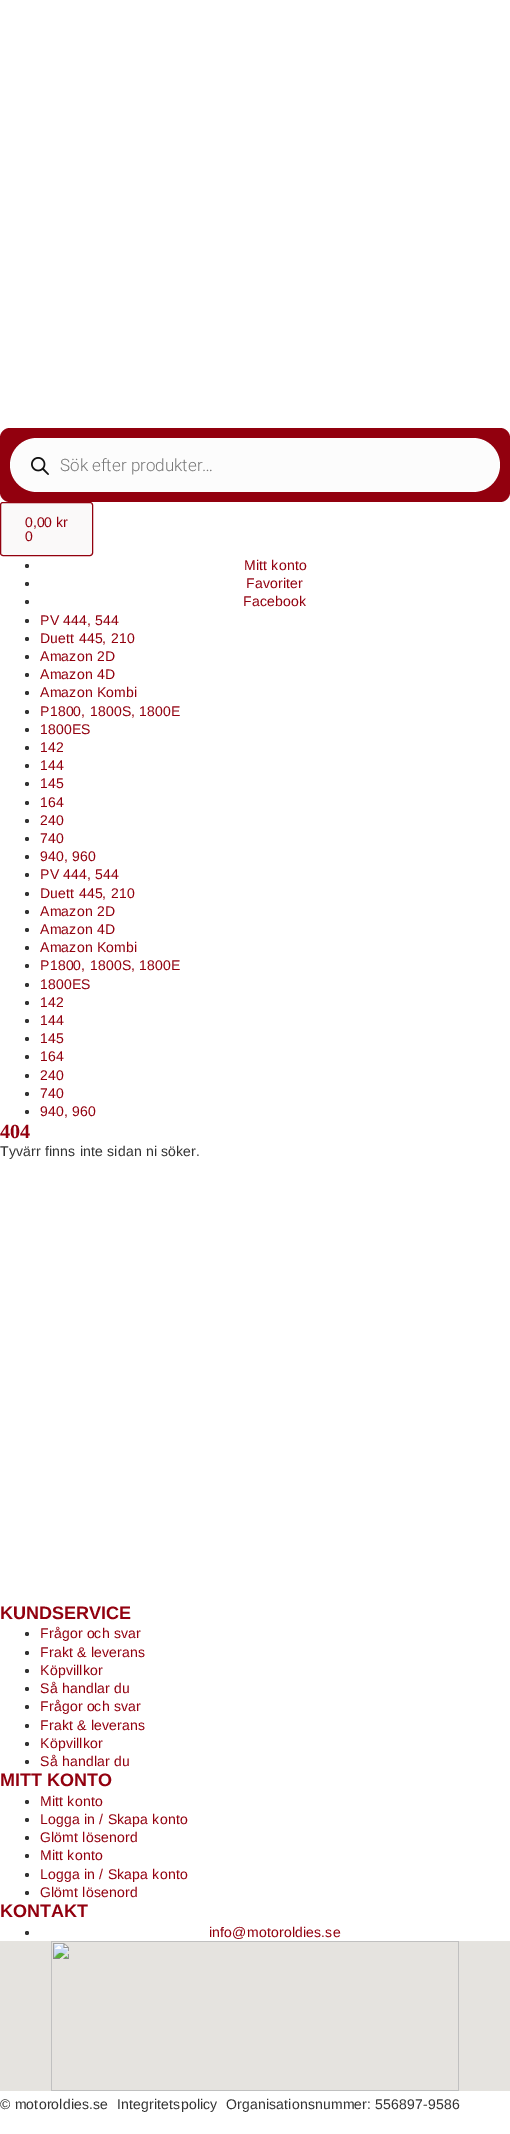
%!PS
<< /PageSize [510 2134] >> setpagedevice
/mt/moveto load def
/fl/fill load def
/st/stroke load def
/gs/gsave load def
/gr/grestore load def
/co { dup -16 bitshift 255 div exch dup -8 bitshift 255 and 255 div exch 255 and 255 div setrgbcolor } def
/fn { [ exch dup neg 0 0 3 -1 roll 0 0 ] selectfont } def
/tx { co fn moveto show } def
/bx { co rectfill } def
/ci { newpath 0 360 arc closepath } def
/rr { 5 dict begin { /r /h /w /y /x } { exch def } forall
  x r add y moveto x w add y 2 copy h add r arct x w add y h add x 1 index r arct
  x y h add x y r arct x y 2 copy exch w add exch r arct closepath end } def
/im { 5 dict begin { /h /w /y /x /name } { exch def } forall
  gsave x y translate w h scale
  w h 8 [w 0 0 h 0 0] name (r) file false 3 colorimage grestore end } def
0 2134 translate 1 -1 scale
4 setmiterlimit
0 0 510 2134 16#FFFFFF bx
16#92000E co
0 428 510 74 10 rr fl
16#FCFCFC co
10 438 490 54 27 rr fl
(media/1.raw) 31 457 18 18 im
16#FAF9F9 co
.5 502.5 92 53 2.5 rr gs fl gr
16#92000E co
st
16#333333 co
27 566 2 ci fl
27 584 2 ci fl
27 602 2 ci fl
27 621 2 ci fl
27 639 2 ci fl
27 657 2 ci fl
27 675 2 ci fl
27 693 2 ci fl
27 712 2 ci fl
27 730 2 ci fl
27 748 2 ci fl
27 766 2 ci fl
27 784 2 ci fl
27 803 2 ci fl
27 821 2 ci fl
27 839 2 ci fl
27 857 2 ci fl
27 875 2 ci fl
27 894 2 ci fl
27 912 2 ci fl
27 930 2 ci fl
27 948 2 ci fl
27 966 2 ci fl
27 985 2 ci fl
27 1003 2 ci fl
27 1021 2 ci fl
27 1039 2 ci fl
27 1057 2 ci fl
27 1076 2 ci fl
27 1094 2 ci fl
27 1112 2 ci fl
27 1634 2 ci fl
27 1653 2 ci fl
27 1671 2 ci fl
27 1689 2 ci fl
27 1707 2 ci fl
27 1726 2 ci fl
27 1744 2 ci fl
27 1762 2 ci fl
27 1802 2 ci fl
27 1820 2 ci fl
27 1838 2 ci fl
27 1856 2 ci fl
27 1875 2 ci fl
27 1893 2 ci fl
27 1933 2 ci fl
(media/2.raw) 0 1941 510 150 im
(Sök efter produkter…) 60 471 /Roboto-Light 17 16#777777 tx
(0,00 kr) 25 527 /LiberationSans-Regular 14 16#92000E tx
(0) 25 541 /LiberationSans-Regular 14 16#92000E tx
244 570 mt .2 0 (Mitt konto) ashow
246 588 mt .2 0 (Favoriter) ashow
243 606 mt .2 0 (Facebook) ashow
40 625 mt .2 0 (PV 444, 544) ashow
40 643 mt .2 0 (Duett 445, 210) ashow
40 661 mt .2 0 (Amazon 2D) ashow
40 679 mt .2 0 (Amazon 4D) ashow
40 697 mt .2 0 (Amazon Kombi) ashow
40 716 mt .2 0 (P1800, 1800S, 1800E) ashow
40 734 mt .2 0 (1800ES) ashow
40 752 mt .2 0 (142) ashow
40 770 mt .2 0 (144) ashow
40 788 mt .2 0 (145) ashow
40 807 mt .2 0 (164) ashow
40 825 mt .2 0 (240) ashow
40 843 mt .2 0 (740) ashow
40 861 mt .2 0 (940, 960) ashow
40 879 mt .2 0 (PV 444, 544) ashow
40 898 mt .2 0 (Duett 445, 210) ashow
40 916 mt .2 0 (Amazon 2D) ashow
40 934 mt .2 0 (Amazon 4D) ashow
40 952 mt .2 0 (Amazon Kombi) ashow
40 970 mt .2 0 (P1800, 1800S, 1800E) ashow
40 989 mt .2 0 (1800ES) ashow
40 1007 mt .2 0 (142) ashow
40 1025 mt .2 0 (144) ashow
40 1043 mt .2 0 (145) ashow
40 1061 mt .2 0 (164) ashow
40 1080 mt .2 0 (240) ashow
40 1098 mt .2 0 (740) ashow
40 1116 mt .2 0 (940, 960) ashow
(404) 0 1138 /LiberationSerif-Bold 20 16#92000E tx
/LiberationSans-Regular 14 fn
16#333333 co
0 1156 mt .2 0 (Tyvärr finns inte sidan ni söker.) ashow
(KUNDSERVICE) 0 1619 /LiberationSans-Bold 18 16#92000E tx
/LiberationSans-Regular 14 fn
40 1638 mt .2 0 (Frågor och svar) ashow
40 1657 mt .2 0 (Frakt & leverans) ashow
40 1675 mt .2 0 (Köpvillkor) ashow
40 1693 mt .2 0 (Så handlar du) ashow
40 1711 mt .2 0 (Frågor och svar) ashow
40 1730 mt .2 0 (Frakt & leverans) ashow
40 1748 mt .2 0 (Köpvillkor) ashow
40 1766 mt .2 0 (Så handlar du) ashow
(MITT KONTO) 0 1786 /LiberationSans-Bold 18 16#92000E tx
/LiberationSans-Regular 14 fn
40 1806 mt .2 0 (Mitt konto) ashow
40 1824 mt .2 0 (Logga in / Skapa konto) ashow
40 1842 mt .2 0 (Glömt lösenord) ashow
40 1860 mt .2 0 (Mitt konto) ashow
40 1879 mt .2 0 (Logga in / Skapa konto) ashow
40 1897 mt .2 0 (Glömt lösenord) ashow
(KONTAKT) 0 1917 /LiberationSans-Bold 18 16#92000E tx
/LiberationSans-Regular 14 fn
209 1937 mt .2 0 (info@motoroldies.se) ashow
16#333333 co
0 2109 mt .2 0 (© motoroldies.se) ashow
117 2109 mt .2 0 (Integritetspolicy  Organisationsnummer: 556897-9586) ashow
showpage
